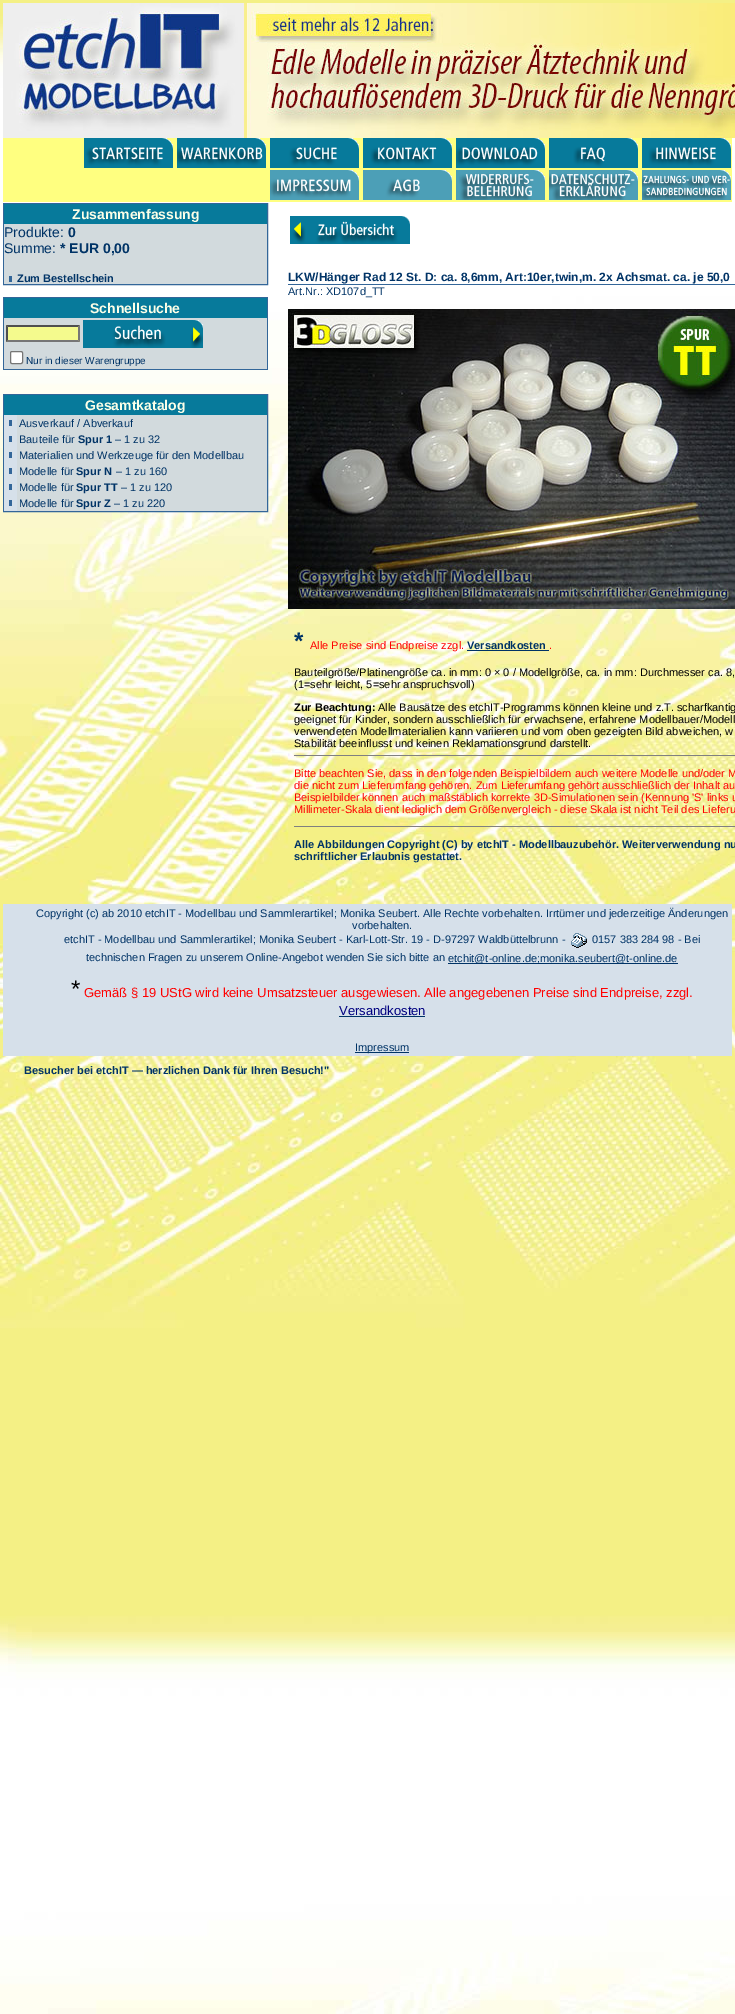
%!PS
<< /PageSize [735 2014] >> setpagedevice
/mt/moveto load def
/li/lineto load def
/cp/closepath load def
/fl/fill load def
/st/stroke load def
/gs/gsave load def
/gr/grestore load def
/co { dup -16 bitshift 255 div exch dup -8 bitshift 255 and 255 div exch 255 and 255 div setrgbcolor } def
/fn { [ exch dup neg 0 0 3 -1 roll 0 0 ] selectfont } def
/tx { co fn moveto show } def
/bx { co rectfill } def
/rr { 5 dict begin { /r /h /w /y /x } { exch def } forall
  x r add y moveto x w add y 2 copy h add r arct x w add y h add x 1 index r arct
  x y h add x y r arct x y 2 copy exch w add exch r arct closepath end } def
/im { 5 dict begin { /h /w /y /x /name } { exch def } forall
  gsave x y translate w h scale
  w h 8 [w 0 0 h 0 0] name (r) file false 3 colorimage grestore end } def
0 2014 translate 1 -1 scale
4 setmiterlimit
0 0 735 2014 16#FFFFFF bx
(media/1.raw) 0 0 735 2014 im
(media/2.raw) 3 3 732 135 im
3 138 729 64 16#FFFF80 bx
(media/3.raw) 84 138 89 30 im
(media/4.raw) 177 138 89 30 im
(media/5.raw) 270 138 89 30 im
(media/6.raw) 363 138 89 30 im
(media/7.raw) 456 138 89 30 im
(media/8.raw) 549 138 89 30 im
(media/9.raw) 642 138 89 30 im
(media/10.raw) 270 170 89 30 im
(media/11.raw) 363 170 89 30 im
(media/12.raw) 456 170 89 30 im
(media/13.raw) 549 170 89 30 im
(media/14.raw) 642 170 89 30 im
16#336699 co
3.5 203.5 264 81 rectstroke
4 204 263 20 16#077A9B bx
4 224 263 60 16#D2DADD bx
9 276 3 6 16#336699 bx
3 297 265 73 16#336699 bx
4 298 263 20 16#077A9B bx
4 318 263 51 16#D2DADD bx
6 325 74 17 16#F4FA8D bx
16#4F4F4F co
6 325 mt 80 325 li 78 327 li 8 327 li cp fl
16#767676 co
80 325 mt 80 342 li 78 340 li 78 327 li cp fl
80 342 mt 6 342 li 8 340 li 78 340 li cp fl
16#4F4F4F co
6 342 mt 6 325 li 8 327 li 8 340 li cp fl
(media/15.raw) 83 320 120 28 im
16#FFFFFF co
10.5 351.5 12 12 1.5 rr gs fl gr
16#767676 co
st
16#336699 co
3.5 394.5 264 117 rectstroke
4 395 263 20 16#077A9B bx
4 415 13 96 16#D6E0EA bx
9 420 3 6 16#336699 bx
17 415 250 96 16#D2DADD bx
9 436 3 6 16#336699 bx
9 452 3 6 16#336699 bx
9 468 3 6 16#336699 bx
9 484 3 6 16#336699 bx
9 500 3 6 16#336699 bx
(media/16.raw) 290 216 120 28 im
288 284 447 1 16#336699 bx
(media/17.raw) 288 309 447 300 im
467 650 82 1 16#003366 bx
294 755 441 1 16#808080 bx
294 826 441 1 16#808080 bx
3 904 729 152 16#D6E0EA bx
(media/18.raw) 571 933 16 15 im
448 963 230 1 16#003366 bx
339 1016 86 1 16#003366 bx
355 1052 54 1 16#003366 bx
(Zusammenfassung) 72 219 /LiberationSans-Bold 14 16#FDFFE8 tx
(Produkte:) 4 237 /LiberationSans-Regular 14 16#003366 tx
(0) 68 237 /LiberationSans-Bold 14 16#003366 tx
(Summe:) 4 253 /LiberationSans-Regular 14 16#003366 tx
(* EUR 0,00) 60 253 /LiberationSans-Bold 14 16#003366 tx
(Zum Bestellschein) 17 282 /LiberationSans-Bold 11 16#003366 tx
(Schnellsuche) 90 313 /LiberationSans-Bold 14 16#FDFFE8 tx
(Nur in dieser Warengruppe) 26 364 /LiberationSans-Regular 10 16#003366 tx
(Gesamtkatalog) 85 410 /LiberationSans-Bold 14 16#FDFFE8 tx
(Ausverkauf / Abverkauf) 19 427 /LiberationSans-Regular 11 16#003366 tx
(Bauteile für) 19 443 /LiberationSans-Regular 11 16#003366 tx
(Spur 1) 78 443 /LiberationSans-Bold 11 16#003366 tx
(– 1 zu 32) 115 443 /LiberationSans-Regular 11 16#003366 tx
(Materialien und Werkzeuge für den Modellbau) 19 459 /LiberationSans-Regular 11 16#003366 tx
(Modelle für) 19 475 /LiberationSans-Regular 11 16#003366 tx
(Spur N) 76 475 /LiberationSans-Bold 11 16#003366 tx
(– 1 zu 160) 116 475 /LiberationSans-Regular 11 16#003366 tx
(Modelle für) 19 491 /LiberationSans-Regular 11 16#003366 tx
(Spur TT) 76 491 /LiberationSans-Bold 11 16#003366 tx
(– 1 zu 120) 121 491 /LiberationSans-Regular 11 16#003366 tx
(Modelle für) 19 507 /LiberationSans-Regular 11 16#003366 tx
(Spur Z) 76 507 /LiberationSans-Bold 11 16#003366 tx
(– 1 zu 220) 114 507 /LiberationSans-Regular 11 16#003366 tx
(LKW/Hänger Rad 12 St. D: ca. 8,6mm, Art:10er,twin,m. 2x Achsmat. ca. je 50,0) 288 281 /LiberationSans-Bold 12 16#003366 tx
(Art.Nr.: XD107d_TT) 288 295 /LiberationSans-Regular 11 16#003366 tx
(*) 294 649 /LiberationSans-Bold 24 16#003366 tx
(Alle Preise sind Endpreise zzgl.) 310 649 /LiberationSans-Regular 11 16#FF0000 tx
(Versandkosten) 467 649 /LiberationSans-Bold 11 16#003366 tx
(.) 549 649 /LiberationSans-Regular 11 16#FF0000 tx
(Bauteilgröße/Platinengröße ca. in mm: 0 × 0 / Modellgröße, ca. in mm: Durchmesser ca. 8,) 294 676 /LiberationSans-Regular 11 16#000000 tx
(\(1=sehr leicht, 5=sehr anspruchsvoll\)) 294 688 /LiberationSans-Regular 11 16#000000 tx
(Zur Beachtung:) 294 711 /LiberationSans-Bold 11 16#000000 tx
(Alle Bausätze des etchIT-Programms können kleine und z.T. scharfkantig) 378 711 /LiberationSans-Regular 11 16#000000 tx
(geeignet für Kinder, sondern ausschließlich für erwachsene, erfahrene Modellbauer/Modell) 294 723 /LiberationSans-Regular 11 16#000000 tx
(verwendeten Modellmaterialien kann variieren und vom oben gezeigten Bild abweichen, w) 294 735 /LiberationSans-Regular 11 16#000000 tx
(Stabilität beeinflusst und keinen Reklamationsgrund darstellt.) 294 747 /LiberationSans-Regular 11 16#000000 tx
(Bitte beachten Sie, dass in den folgenden Beispielbildern auch weitere Modelle und/oder M) 294 777 /LiberationSans-Regular 11 16#FF0000 tx
(die nicht zum Lieferumfang gehören. Zum Lieferumfang gehört ausschließlich der Inhalt au) 294 789 /LiberationSans-Regular 11 16#FF0000 tx
(Beispielbilder können auch maßstäblich korrekte 3D-Simulationen sein \(Kennung 'S' links u) 294 801 /LiberationSans-Regular 11 16#FF0000 tx
(Millimeter-Skala dient lediglich dem Größenvergleich - diese Skala ist nicht Teil des Lieferu) 294 813 /LiberationSans-Regular 11 16#FF0000 tx
(Alle Abbildungen Copyright \(C\) by etchIT - Modellbauzubehör. Weiterverwendung nu) 294 848 /LiberationSans-Bold 11 16#003366 tx
(schriftlicher Erlaubnis gestattet.) 294 860 /LiberationSans-Bold 11 16#003366 tx
(Copyright \(c\) ab 2010 etchIT - Modellbau und Sammlerartikel; Monika Seubert. Alle Rechte vorbehalten. Irrtümer und jederzeitige Änderungen) 36 917 /LiberationSans-Regular 11 16#003366 tx
(vorbehalten.) 352 929 /LiberationSans-Regular 11 16#003366 tx
(etchIT - Modellbau und Sammlerartikel; Monika Seubert - Karl-Lott-Str. 19 - D-97297 Waldbüttelbrunn -) 64 943 /LiberationSans-Regular 11 16#003366 tx
(0157 383 284 98 - Bei) 592 943 /LiberationSans-Regular 11 16#003366 tx
(technischen Fragen zu unserem Online-Angebot wenden Sie sich bitte an) 86 961 /LiberationSans-Regular 11 16#003366 tx
(etchit@t-online.de;monika.seubert@t-online.de) 448 962 /LiberationSans-Regular 11 16#003366 tx
(*) 71 997 /LiberationSans-Regular 24 16#000000 tx
(Gemäß § 19 UStG wird keine Umsatzsteuer ausgewiesen. Alle angegebenen Preise sind Endpreise, zzgl.) 84 997 /LiberationSans-Regular 13 16#FF0000 tx
(Versandkosten) 339 1015 /LiberationSans-Regular 13 16#000080 tx
(Impressum) 355 1051 /LiberationSans-Regular 11 16#003366 tx
(Besucher bei etchIT — herzlichen Dank für Ihren Besuch!") 24 1074 /LiberationSans-Bold 11 16#003366 tx
showpage
